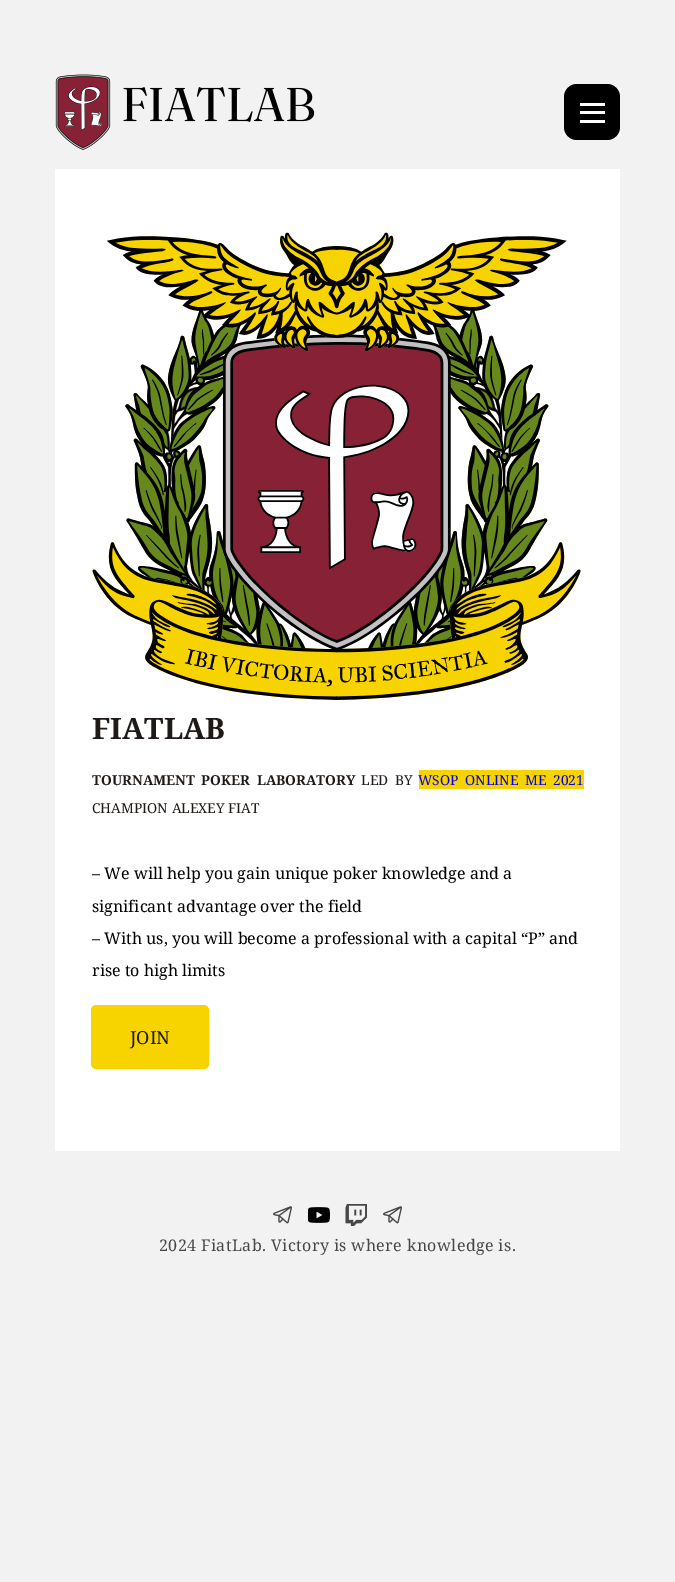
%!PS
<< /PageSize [675 1582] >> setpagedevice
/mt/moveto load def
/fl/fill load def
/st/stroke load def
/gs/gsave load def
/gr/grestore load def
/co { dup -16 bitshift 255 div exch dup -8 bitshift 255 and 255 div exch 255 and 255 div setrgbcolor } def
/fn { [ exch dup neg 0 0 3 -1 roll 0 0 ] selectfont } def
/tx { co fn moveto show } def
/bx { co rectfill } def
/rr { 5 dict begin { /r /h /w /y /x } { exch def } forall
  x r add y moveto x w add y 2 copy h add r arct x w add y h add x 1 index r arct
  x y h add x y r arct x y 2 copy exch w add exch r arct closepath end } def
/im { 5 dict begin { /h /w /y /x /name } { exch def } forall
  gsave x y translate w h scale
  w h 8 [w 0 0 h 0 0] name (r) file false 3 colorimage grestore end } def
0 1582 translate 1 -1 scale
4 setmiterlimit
0 0 675 1582 16#F2F2F2 bx
(media/1.raw) 55 74 260 76 im
16#000000 co
564 84 56 56 13 rr fl
580 103 25 3 16#FFFFFF bx
580 111 25 3 16#FFFFFF bx
580 120 25 3 16#FFFFFF bx
55 169 565 982 16#FFFFFF bx
(media/2.raw) 92 232 489 468 im
419 770 165 19 16#F7D300 bx
91.5 1005.5 117 63 4.5 rr gs fl gr
st
(media/3.raw) 273 1206 19 18 im
(media/4.raw) 308 1207 22 16 im
(media/5.raw) 345 1204 22 22 im
(media/3.raw) 383 1206 19 18 im
(FIATLAB) 92 739 /NotoSerif-Bold 29.5 16#1F1A17 tx
/NotoSerif-Bold 13.75 fn
92 785 mt 3 0 32 (TOURNAMENT POKER LABORATORY) widthshow
/NotoSerif-Regular 13.75 fn
361 785 mt 3 0 32 (LED BY) widthshow
16#0000EE co
418 785 mt 3 0 32 (WSOP ONLINE ME 2021) widthshow
(CHAMPION ALEXEY FIAT) 92 813 /NotoSerif-Regular 13.75 16#1F1A17 tx
(– We will help you gain unique poker knowledge and a) 92 879 /NotoSerif-Regular 16.05 16#000000 tx
(significant advantage over the field) 92 912 /NotoSerif-Regular 16.05 16#000000 tx
(– With us, you will become a professional with a capital “P” and) 92 944 /NotoSerif-Regular 16.05 16#000000 tx
(rise to high limits) 92 976 /NotoSerif-Regular 16.05 16#000000 tx
(JOIN) 130 1044 /NotoSerif-Regular 18 16#1F1A17 tx
/NotoSerif-Regular 16.05 fn
16#474747 co
159 1251 mt .4 0 (2024 FiatLab. Victory is where knowledge is.) ashow
showpage
